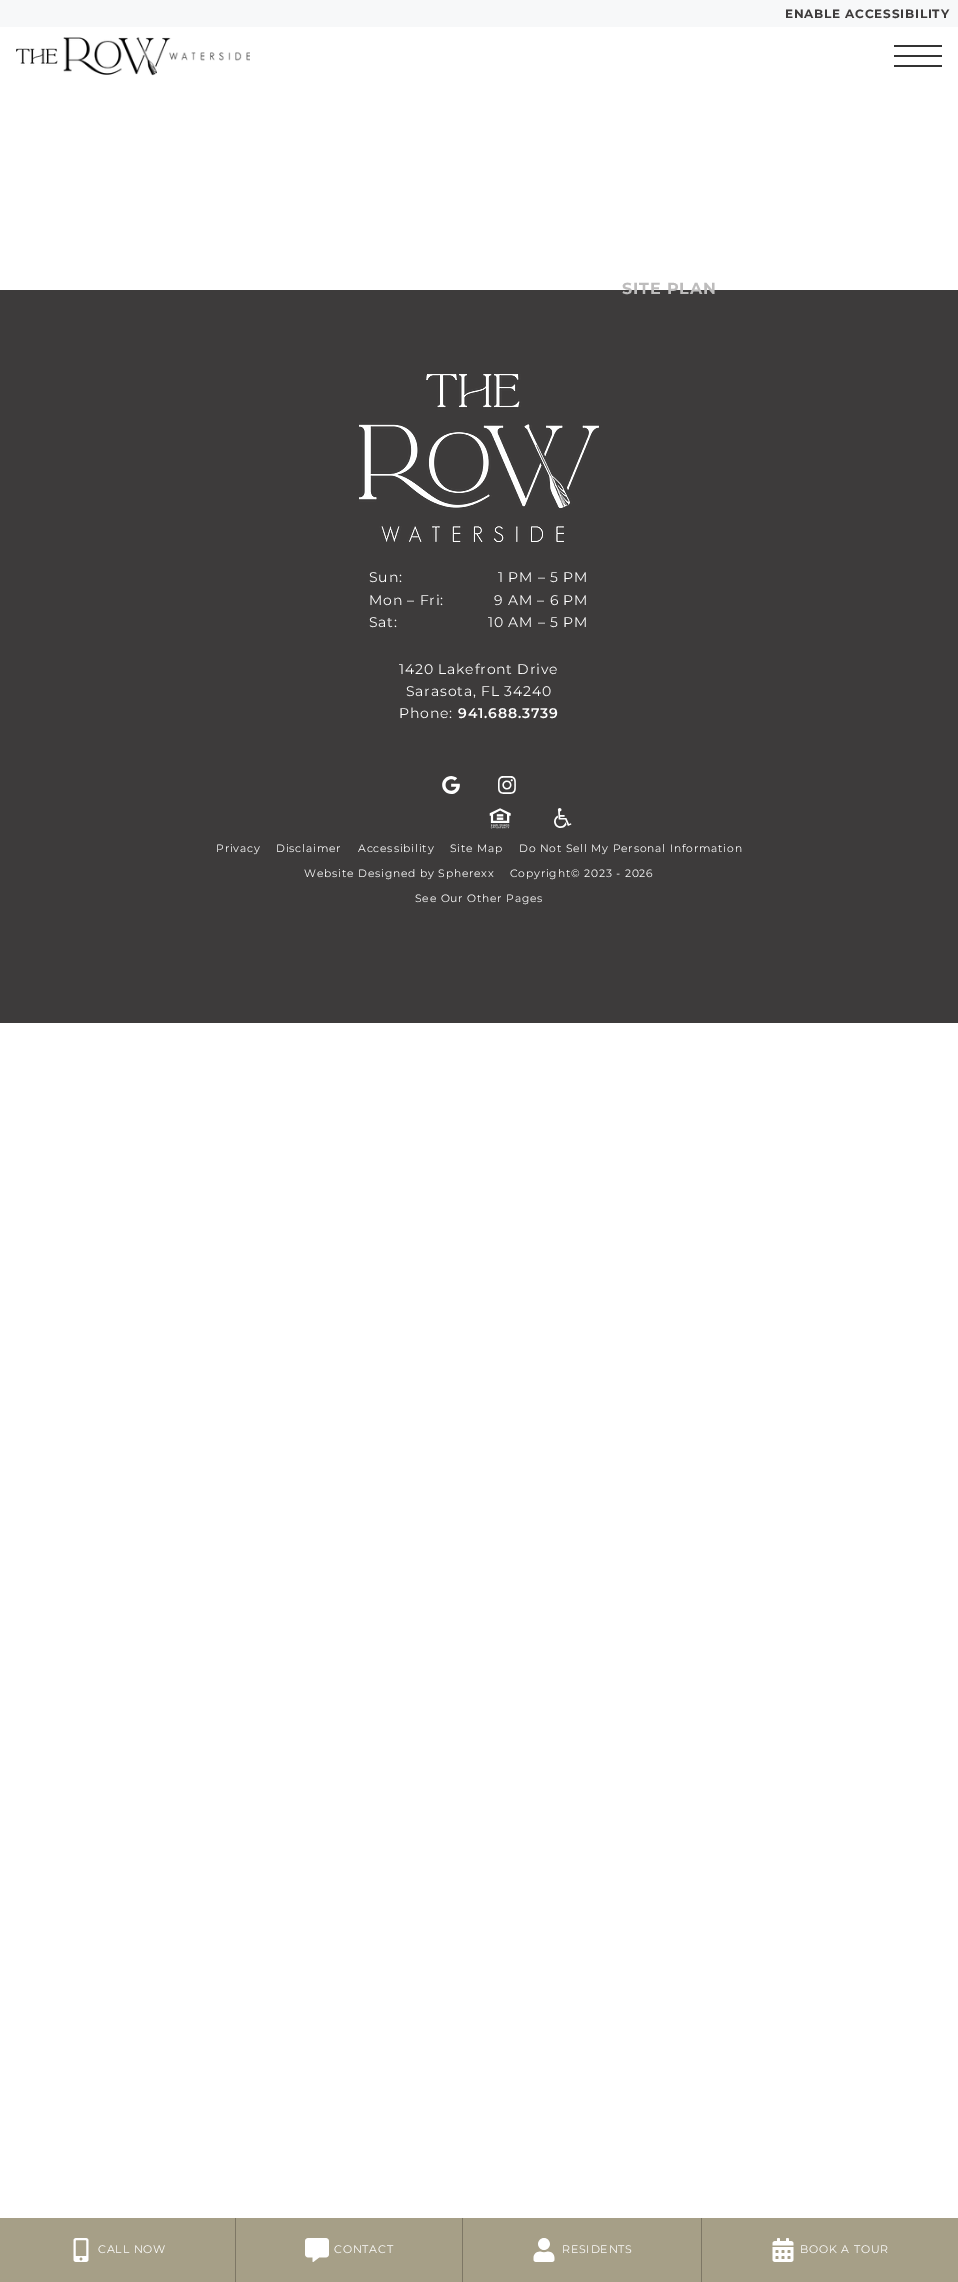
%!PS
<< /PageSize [958 2282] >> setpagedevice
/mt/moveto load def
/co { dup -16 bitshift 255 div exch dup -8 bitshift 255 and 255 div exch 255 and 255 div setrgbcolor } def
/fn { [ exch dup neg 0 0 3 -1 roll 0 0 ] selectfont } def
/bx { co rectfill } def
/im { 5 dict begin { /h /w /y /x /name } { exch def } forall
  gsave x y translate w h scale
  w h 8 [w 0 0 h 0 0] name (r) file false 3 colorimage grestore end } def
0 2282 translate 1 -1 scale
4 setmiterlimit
0 0 958 2282 16#FFFFFF bx
0 0 958 27 16#F7F8F9 bx
(media/1.raw) 16 37 234 39 im
894 45 48 2 16#333333 bx
894 55 48 2 16#333333 bx
894 65 48 2 16#333333 bx
0 2218 958 64 16#A69F87 bx
(media/2.raw) 73 2238 16 24 im
235 2218 1 64 16#7D7765 bx
(media/3.raw) 305 2238 24 24 im
462 2218 1 64 16#7D7765 bx
(media/4.raw) 533 2238 22 24 im
701 2218 1 64 16#7D7765 bx
(media/5.raw) 772 2238 22 24 im
0 290 958 733 16#3D3B3B bx
(media/6.raw) 359 374 240 168 im
(media/7.raw) 442 776 18 18 im
(media/8.raw) 498 776 18 18 im
(media/9.raw) 489 808 22 21 im
(media/10.raw) 554 808 18 20 im
/Montserrat-Bold 12 fn
785 18 mt .8 0 (ENABLE ACCESSIBILITY) ashow
/Montserrat-Bold 16 fn
16#BDBCBC co
622 294 mt .8 0 (SITE PLAN) ashow
/Montserrat-Regular 11 fn
16#FFFFFF co
98 2253 mt .8 0 (CALL NOW) ashow
334 2253 mt .8 0 (CONTACT) ashow
562 2253 mt .8 0 (RESIDENTS) ashow
800 2253 mt .8 0 (BOOK A TOUR) ashow
/Montserrat-Regular 14 fn
369 582 mt .8 0 (Sun:) ashow
498 582 mt .8 0 (1 PM – 5 PM) ashow
369 605 mt .8 0 (Mon – Fri:) ashow
494 605 mt .8 0 (9 AM – 6 PM) ashow
369 627 mt .8 0 (Sat:) ashow
488 627 mt .8 0 (10 AM – 5 PM) ashow
399 674 mt .8 0 (1420 Lakefront Drive) ashow
406 696 mt .8 0 (Sarasota, FL 34240) ashow
399 718 mt .8 0 (Phone:) ashow
/Montserrat-SemiBold 14 fn
458 718 mt .8 0 (941.688.3739) ashow
/Montserrat-Regular 10.75 fn
216 852 mt .8 0 (Privacy) ashow
276 852 mt .8 0 (Disclaimer) ashow
358 852 mt .8 0 (Accessibility) ashow
450 852 mt .8 0 (Site Map) ashow
519 852 mt .8 0 (Do Not Sell My Personal Information) ashow
304 877 mt .8 0 (Website Designed by Spherexx) ashow
510 877 mt .8 0 (Copyright© 2023 - 2026) ashow
415 902 mt .8 0 (See Our Other Pages) ashow
showpage
